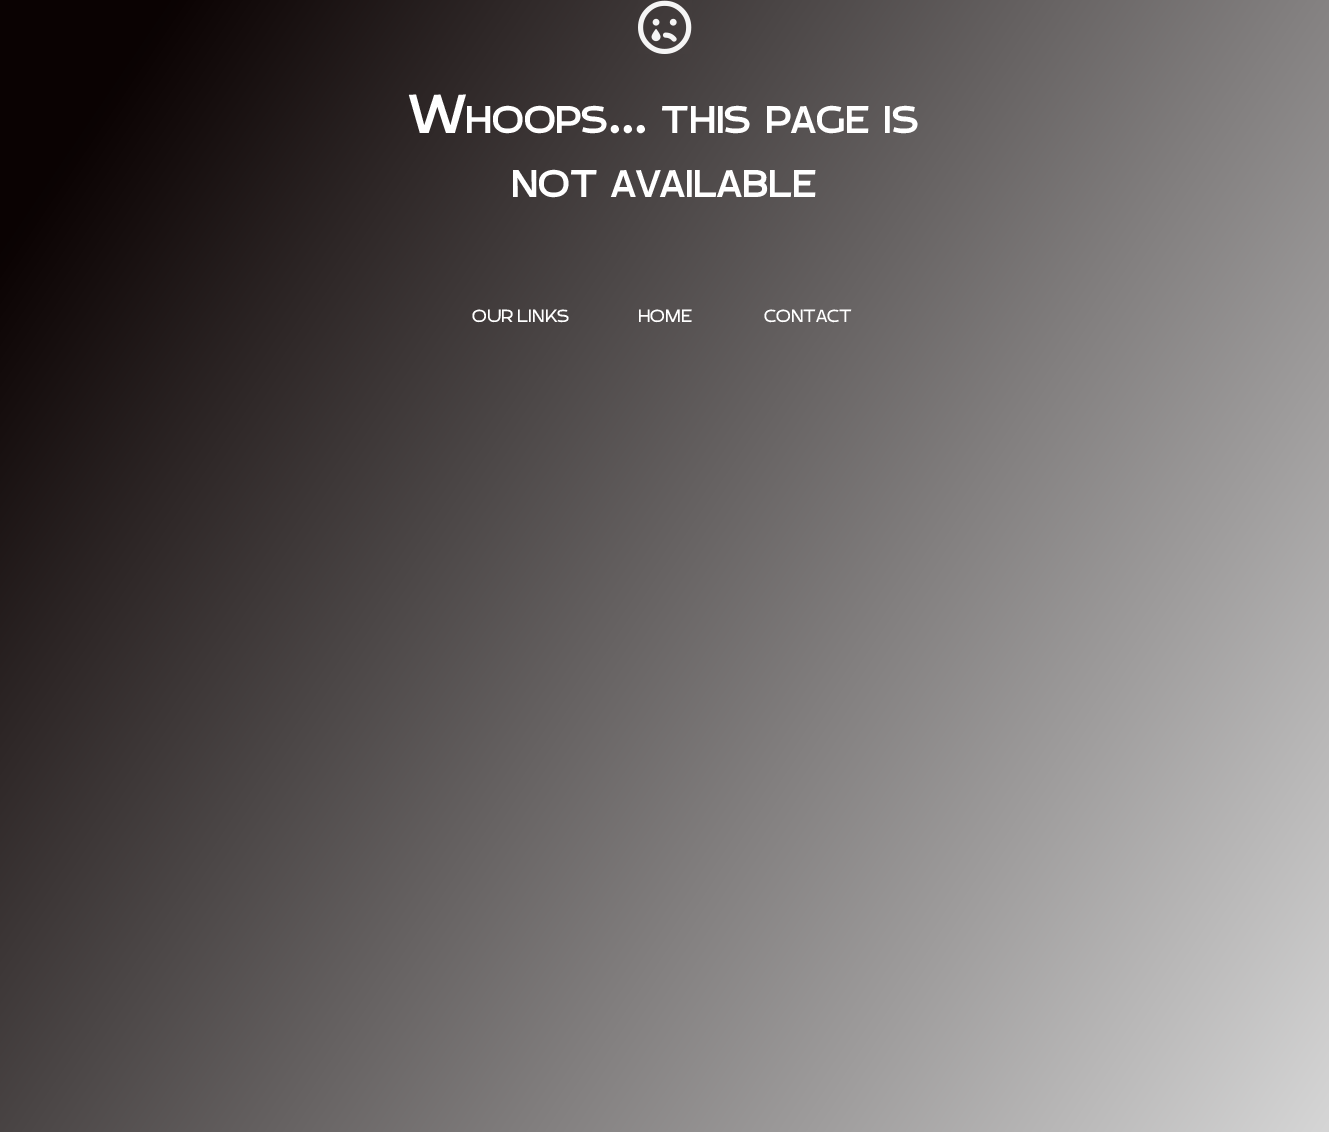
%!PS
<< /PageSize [1329 1132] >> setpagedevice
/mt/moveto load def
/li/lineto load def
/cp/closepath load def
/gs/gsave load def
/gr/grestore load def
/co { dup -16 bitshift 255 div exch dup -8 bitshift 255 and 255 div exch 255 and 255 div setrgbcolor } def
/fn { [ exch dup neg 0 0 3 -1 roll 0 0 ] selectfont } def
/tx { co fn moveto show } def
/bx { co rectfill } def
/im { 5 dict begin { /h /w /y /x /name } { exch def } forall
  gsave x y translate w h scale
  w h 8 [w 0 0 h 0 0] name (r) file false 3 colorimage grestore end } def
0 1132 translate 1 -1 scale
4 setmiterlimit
0 0 1329 1132 16#FFFFFF bx
gs 0 0 mt 1329 0 li 1329 1132 li 0 1132 li cp clip newpath
<< /ShadingType 2 /ColorSpace /DeviceRGB /Coords [-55 81 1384 1051] /Extend [true true] /Function << /FunctionType 3 /Domain [0 1] /Functions [<< /FunctionType 2 /Domain [0 1] /C0 [.039 .008 .008] /C1 [.039 .008 .008] /N 1 >> << /FunctionType 2 /Domain [0 1] /C0 [.039 .008 .008] /C1 [.839 .839 .839] /N 1 >>] /Bounds [.08] /Encode [0 1 0 1] >> >> shfill gr
(media/1.raw) 638 0 54 54 im
/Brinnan-Bold 54 fn
409 133 mt 1 0 (W) ashow
/Brinnan-Bold 37.75 fn
465 133 mt 1 0 (HOOPS) ashow
/Brinnan-Bold 54 fn
608 133 mt 1 0 (...) ashow
/Brinnan-Bold 37.75 fn
661 133 mt 1 0 (THIS) ashow
765 133 mt 1 0 (PAGE) ashow
883 133 mt 1 0 (IS) ashow
511 197 mt 1 0 (NOT) ashow
611 197 mt 1 0 (AVAILABLE) ashow
(OUR LINKS) 472 322 /Brinnan-Regular 18 16#FFFFFF tx
(HOME) 638 322 /Brinnan-Regular 18 16#FFFFFF tx
(CONTACT) 764 322 /Brinnan-Regular 18 16#FFFFFF tx
showpage
